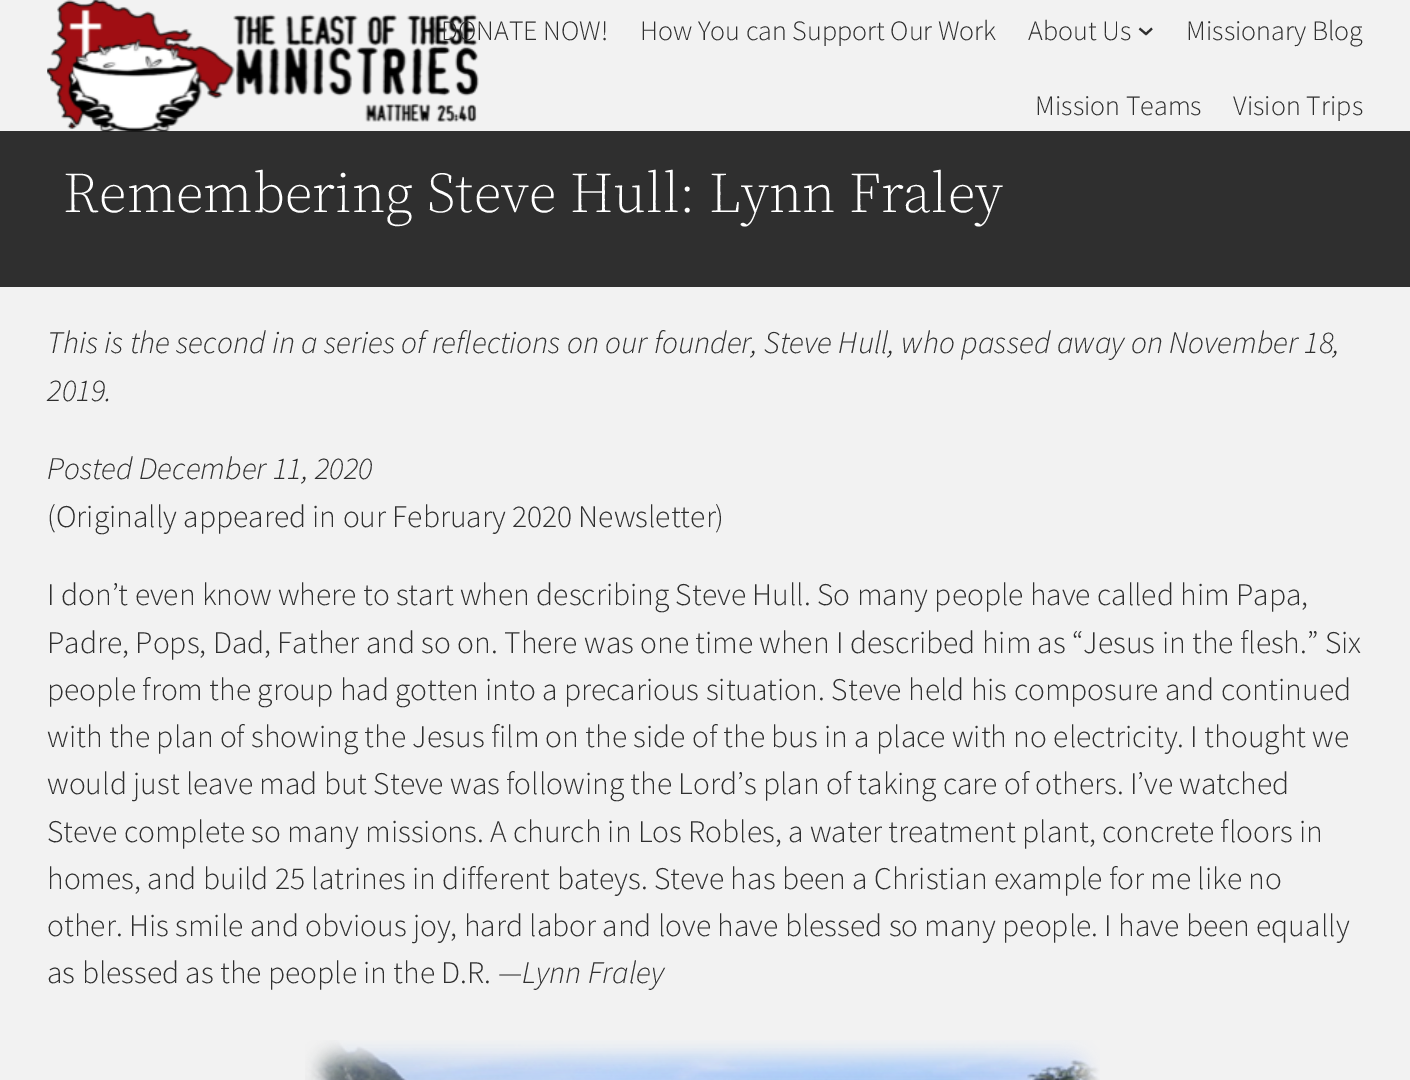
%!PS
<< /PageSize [1410 1080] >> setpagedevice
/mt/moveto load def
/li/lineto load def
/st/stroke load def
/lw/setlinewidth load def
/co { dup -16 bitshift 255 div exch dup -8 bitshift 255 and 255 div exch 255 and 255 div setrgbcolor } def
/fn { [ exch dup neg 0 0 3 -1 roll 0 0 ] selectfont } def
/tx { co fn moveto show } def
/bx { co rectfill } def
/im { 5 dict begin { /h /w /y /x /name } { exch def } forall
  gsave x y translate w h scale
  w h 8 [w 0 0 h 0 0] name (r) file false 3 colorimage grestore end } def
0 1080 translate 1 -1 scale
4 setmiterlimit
0 0 1410 1080 16#F2F2F2 bx
0 131 1410 156 16#2F2F2F bx
(media/1.raw) 47 0 432 132 im
2.1 lw
1139.5 28.5 mt 1146 34 li 1152 28.5 li st
(media/2.raw) 305 1040 795 40 im
(DONATE NOW!) 441 40 /SourceSansPro-Light 28 16#2F2F2F tx
(How You can Support Our Work) 640 40 /SourceSansPro-Light 28 16#2F2F2F tx
(About Us) 1028 40 /SourceSansPro-Light 28 16#2F2F2F tx
(Missionary Blog) 1186 40 /SourceSansPro-Light 28 16#2F2F2F tx
(Mission Teams) 1035 115 /SourceSansPro-Light 28 16#2F2F2F tx
(Vision Trips) 1233 115 /SourceSansPro-Light 28 16#2F2F2F tx
(Remembering Steve Hull: Lynn Fraley) 63 212 /SourceSerif4-Light 56.9 16#FFFFFF tx
(This is the second in a series of reflections on our founder, Steve Hull, who passed away on November 18,) 47 353 /SourceSansPro-LightItalic 31.5 16#2F2F2F tx
(2019.) 47 401 /SourceSansPro-LightItalic 31.5 16#2F2F2F tx
(Posted December 11, 2020) 47 479 /SourceSansPro-LightItalic 31.5 16#2F2F2F tx
(\(Originally appeared in our February 2020 Newsletter\)) 47 527 /SourceSansPro-Light 31.5 16#2F2F2F tx
(I don’t even know where to start when describing Steve Hull. So many people have called him Papa,) 47 605 /SourceSansPro-Light 31.5 16#2F2F2F tx
(Padre, Pops, Dad, Father and so on. There was one time when I described him as “Jesus in the flesh.” Six) 47 653 /SourceSansPro-Light 31.5 16#2F2F2F tx
(people from the group had gotten into a precarious situation. Steve held his composure and continued) 47 700 /SourceSansPro-Light 31.5 16#2F2F2F tx
(with the plan of showing the Jesus film on the side of the bus in a place with no electricity. I thought we) 47 747 /SourceSansPro-Light 31.5 16#2F2F2F tx
(would just leave mad but Steve was following the Lord’s plan of taking care of others. I’ve watched) 47 794 /SourceSansPro-Light 31.5 16#2F2F2F tx
(Steve complete so many missions. A church in Los Robles, a water treatment plant, concrete floors in) 47 842 /SourceSansPro-Light 31.5 16#2F2F2F tx
(homes, and build 25 latrines in different bateys. Steve has been a Christian example for me like no) 47 889 /SourceSansPro-Light 31.5 16#2F2F2F tx
(other. His smile and obvious joy, hard labor and love have blessed so many people. I have been equally) 47 936 /SourceSansPro-Light 31.5 16#2F2F2F tx
(as blessed as the people in the D.R.) 47 983 /SourceSansPro-Light 31.5 16#2F2F2F tx
(—Lynn Fraley) 498 983 /SourceSansPro-LightItalic 31.5 16#2F2F2F tx
showpage
